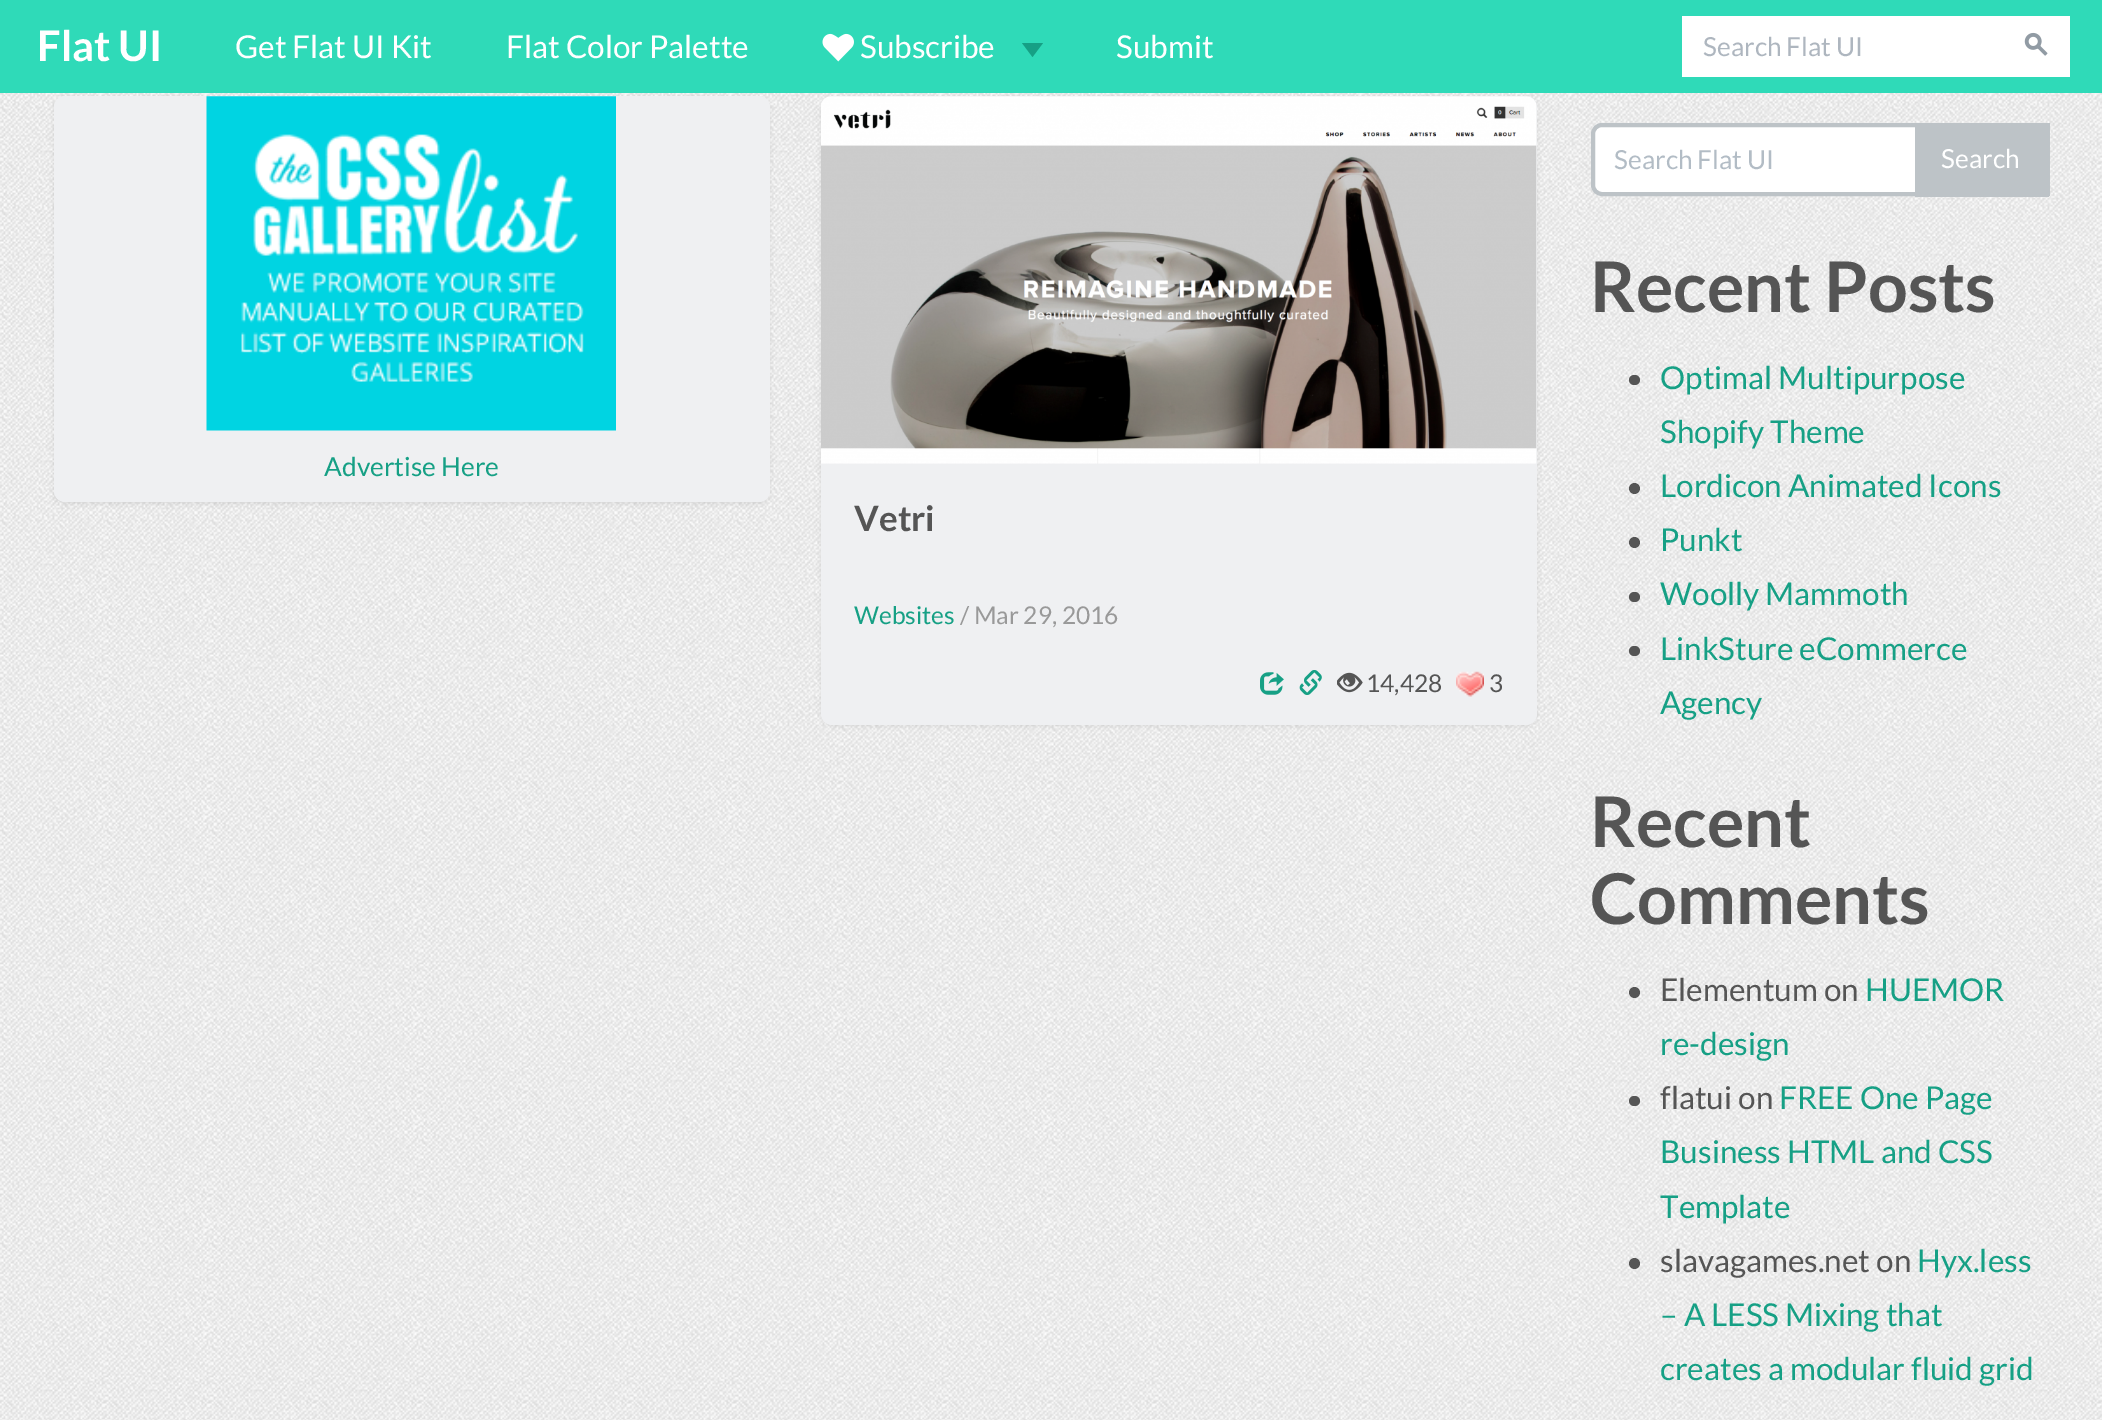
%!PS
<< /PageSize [2102 1420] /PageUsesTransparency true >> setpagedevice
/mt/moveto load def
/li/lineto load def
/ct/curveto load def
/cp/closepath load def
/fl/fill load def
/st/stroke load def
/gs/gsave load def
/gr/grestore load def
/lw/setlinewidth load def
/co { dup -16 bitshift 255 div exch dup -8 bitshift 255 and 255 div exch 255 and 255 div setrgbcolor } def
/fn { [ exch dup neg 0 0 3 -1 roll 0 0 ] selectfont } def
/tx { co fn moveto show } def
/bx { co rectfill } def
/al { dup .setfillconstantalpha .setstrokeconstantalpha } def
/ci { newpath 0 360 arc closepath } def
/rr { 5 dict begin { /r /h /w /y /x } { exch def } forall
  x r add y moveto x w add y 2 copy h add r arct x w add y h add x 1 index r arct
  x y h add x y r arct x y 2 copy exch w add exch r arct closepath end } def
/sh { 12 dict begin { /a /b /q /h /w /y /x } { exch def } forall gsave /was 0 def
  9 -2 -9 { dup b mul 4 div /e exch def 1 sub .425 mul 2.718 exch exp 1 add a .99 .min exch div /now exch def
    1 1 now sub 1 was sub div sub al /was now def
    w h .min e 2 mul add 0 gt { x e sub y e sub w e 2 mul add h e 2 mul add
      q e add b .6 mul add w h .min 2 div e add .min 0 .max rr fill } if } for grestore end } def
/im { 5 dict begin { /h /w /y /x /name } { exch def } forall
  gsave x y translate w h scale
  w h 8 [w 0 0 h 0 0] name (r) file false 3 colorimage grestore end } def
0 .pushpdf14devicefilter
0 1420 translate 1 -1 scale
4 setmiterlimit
0 0 2102 1420 16#FFFFFF bx
(media/1.raw) 0 93 2102 1327 im
16#000000 co
54 98 716 406 11 2 .07 sh
821 98 716 628 11 2 .07 sh
0 0 2102 93 16#2FDAB8 bx
(media/2.raw) 822 33 32 29 im
16#16A085 co
1022 43 mt 1043 43 li 1032.5 57 li cp fl
1682 16 388 61 16#FFFFFF bx
(media/3.raw) 2024 32 24 24 im
16#EFF0F2 co
54 96 716 406 11 rr fl
(media/4.raw) 206 96 410 335 im
821 96 716 629 11 rr fl
(media/5.raw) 821 96 716 368 im
(media/6.raw) 1260 672 24 23 im
(media/7.raw) 1299 670 23 25 im
(media/8.raw) 1337 672 26 21 im
(media/9.raw) 1456 671 28 26 im
16#FFFFFF co
1602 125 mt 1920 125 li 1920 194 li 1602 194 li 1597 194 1593 190 1593 185 ct 1593 134 li 1593 129 1597 125 1602 125 ct cp gs fl gr
16#BDC3C7 co
4 lw
st
1915 127 131 66 16#BDC3C7 bx
1915 123 134 4 16#BDC3C7 bx
2046 123 4 73 16#BDC3C7 bx
1915 193 134 4 16#BDC3C7 bx
16#555555 co
1629 375 11 10 5 rr fl
1634.5 488.5 5.5 ci fl
1634.5 542.5 5.5 ci fl
1629 592 11 10 5 rr fl
1629 646 11 10 5 rr fl
1634.5 992.5 5.5 ci fl
1629 1096 11 10 5 rr fl
1634.5 1263.5 5.5 ci fl
(Flat UI) 37 61 /Lato-Bold 42 16#FFFFFF tx
(Get Flat UI Kit) 235 58 /Lato-Regular 31.5 16#FFFFFF tx
(Flat Color Palette) 506 58 /Lato-Regular 31.5 16#FFFFFF tx
(Subscribe) 860 58 /Lato-Regular 31.5 16#FFFFFF tx
(Submit) 1116 58 /Lato-Regular 31.5 16#FFFFFF tx
(Search Flat UI) 1703 56 /Lato-Regular 26.25 16#AEB6BF tx
(Advertise Here) 324 476 /Lato-Regular 26.25 16#16A085 tx
(Vetri) 854 531 /Lato-Bold 35 16#555555 tx
(Websites) 854 624 /Lato-Regular 24.5 16#16A085 tx
(/ Mar 29, 2016) 960 624 /Lato-Regular 24.5 16#999999 tx
(14,428) 1366 692 /Lato-Regular 24.5 16#555555 tx
(3) 1489 692 /Lato-Regular 24.5 16#555555 tx
(Search Flat UI) 1614 169 /Lato-Regular 26.25 16#B2BCC5 tx
(Search) 1941 168 /Lato-Regular 26.25 16#FFFFFF tx
(Recent Posts) 1590 312 /Lato-Bold 70 16#555555 tx
(Optimal Multipurpose) 1660 389 /Lato-Regular 31.5 16#16A085 tx
(Shopify Theme) 1660 443 /Lato-Regular 31.5 16#16A085 tx
(Lordicon Animated Icons) 1660 497 /Lato-Regular 31.5 16#16A085 tx
(Punkt) 1660 551 /Lato-Regular 31.5 16#16A085 tx
(Woolly Mammoth) 1660 605 /Lato-Regular 31.5 16#16A085 tx
(LinkSture eCommerce) 1660 660 /Lato-Regular 31.5 16#16A085 tx
(Agency) 1660 714 /Lato-Regular 31.5 16#16A085 tx
(Recent) 1590 847 /Lato-Bold 70 16#555555 tx
(Comments) 1590 924 /Lato-Bold 70 16#555555 tx
(Elementum on) 1660 1001 /Lato-Regular 31.5 16#555555 tx
(HUEMOR) 1865 1001 /Lato-Regular 31.5 16#16A085 tx
(re-design) 1660 1055 /Lato-Regular 31.5 16#16A085 tx
(flatui on) 1660 1109 /Lato-Regular 31.5 16#555555 tx
(FREE One Page) 1779 1109 /Lato-Regular 31.5 16#16A085 tx
(Business HTML and CSS) 1660 1163 /Lato-Regular 31.5 16#16A085 tx
(Template) 1660 1218 /Lato-Regular 31.5 16#16A085 tx
(slavagames.net on) 1660 1272 /Lato-Regular 31.5 16#555555 tx
(Hyx.less) 1917 1272 /Lato-Regular 31.5 16#16A085 tx
(– A LESS Mixing that) 1660 1326 /Lato-Regular 31.5 16#16A085 tx
(creates a modular fluid grid) 1660 1380 /Lato-Regular 31.5 16#16A085 tx
.poppdf14devicefilter showpage
